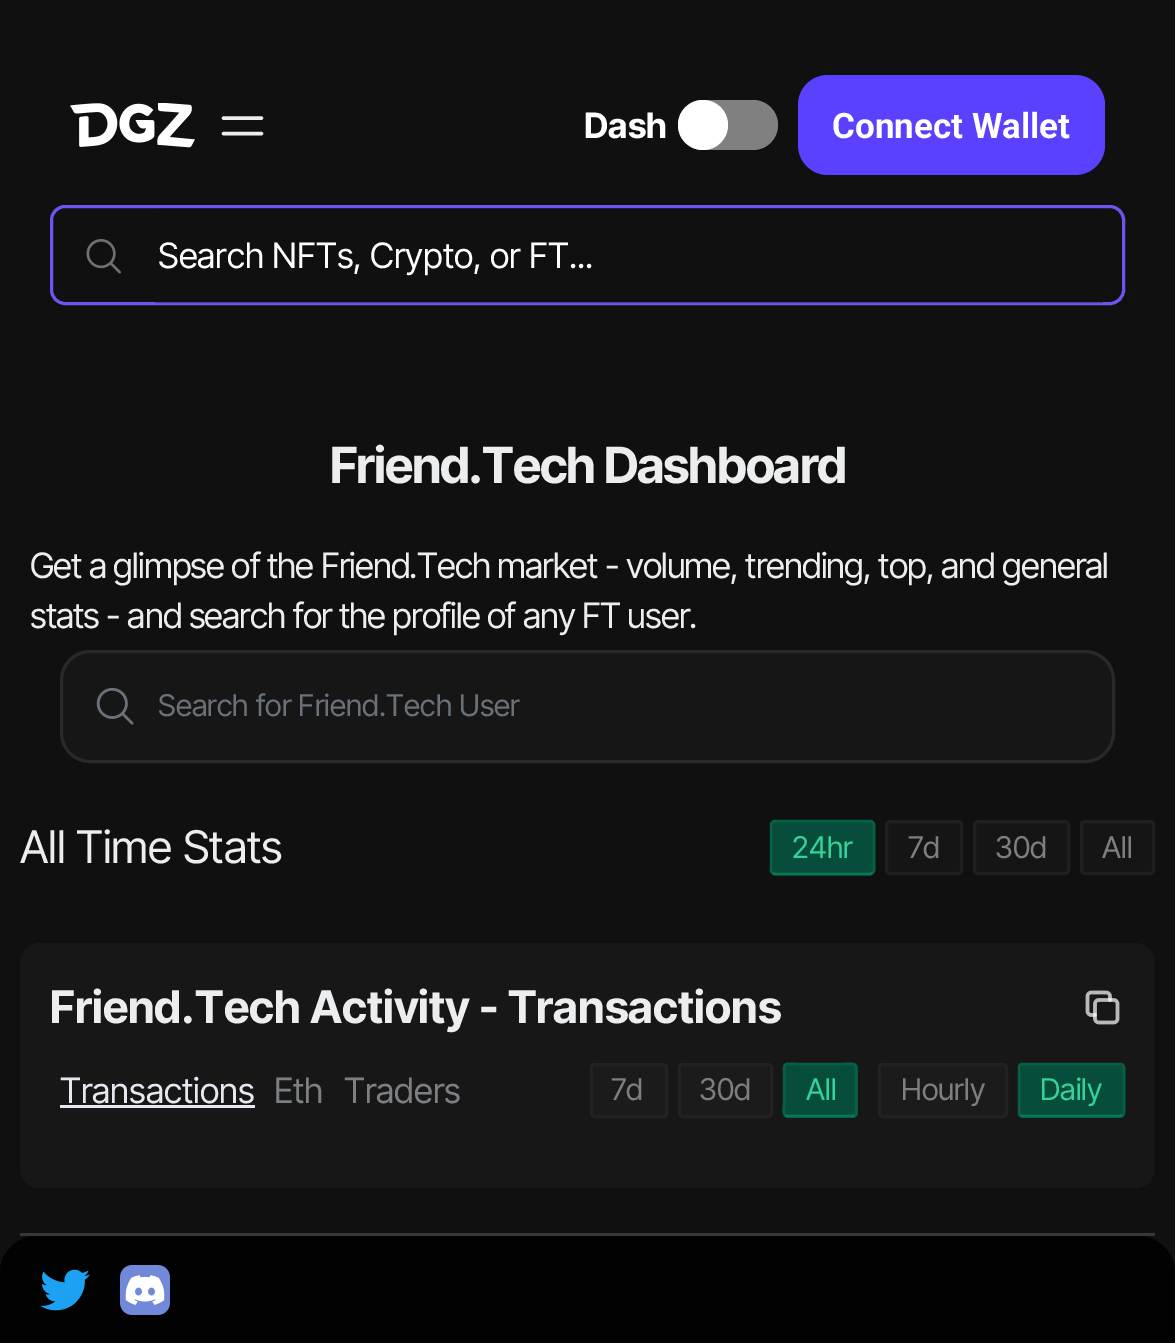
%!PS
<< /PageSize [1175 1343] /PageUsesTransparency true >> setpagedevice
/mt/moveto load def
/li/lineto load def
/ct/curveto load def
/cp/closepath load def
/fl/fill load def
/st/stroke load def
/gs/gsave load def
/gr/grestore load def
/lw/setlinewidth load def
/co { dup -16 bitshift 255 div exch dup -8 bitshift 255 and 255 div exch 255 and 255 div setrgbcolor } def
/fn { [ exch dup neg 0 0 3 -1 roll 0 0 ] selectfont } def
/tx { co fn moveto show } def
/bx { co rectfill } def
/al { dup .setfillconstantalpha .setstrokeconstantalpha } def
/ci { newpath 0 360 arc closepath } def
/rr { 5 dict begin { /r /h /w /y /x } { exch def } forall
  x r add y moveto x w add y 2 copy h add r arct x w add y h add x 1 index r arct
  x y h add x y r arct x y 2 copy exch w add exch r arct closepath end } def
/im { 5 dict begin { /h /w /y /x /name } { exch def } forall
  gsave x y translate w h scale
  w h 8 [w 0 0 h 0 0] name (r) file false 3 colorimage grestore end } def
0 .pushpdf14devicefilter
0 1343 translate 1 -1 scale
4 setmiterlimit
0 0 1175 1343 16#101010 bx
(media/1.raw) 70 103 125 45 im
16#ECEDEE co
3.4 lw
1 setlinecap
1 setlinejoin
223.5 118 mt 261.5 118 li 223.5 133.5 mt 261.5 133.5 li st
16#808080 co
678 100 100 50 25 rr fl
16#FFFFFF co
703 125 25 ci fl
16#5A40FF co
798 75 307 100 30 rr fl
16#7054F0 co
3 lw
0 setlinecap
0 setlinejoin
51.5 206.5 1072 97 13.5 rr st
(media/2.raw) 86 239 35 35 im
0.2 al
155 302 948 1 16#0F0F0F bx
156.5 209.5 945 92 rectstroke
1 al
16#161616 co
61.5 651.5 1052 110 28.5 rr gs fl gr
16#292929 co
st
(media/3.raw) 96 687 38 38 im
16#064E3B co
770 820 105 55 5 rr fl
16#047857 co
2.5 lw
872.5 872.5 mt 872 873.5 871 874 870 874 ct 775 874 li 774 874 773 873.5 772.5 872.5 ct st
16#065F46 co
772.5 872.5 mt 771.5 872 771 871 771 870 ct 771 825 li 771 824 771.5 823 772.5 822.5 ct 773 821.5 774 821 775 821 ct 870 821 li 871 821 872 821.5 872.5 822.5 ct 873.5 823 874 824 874 825 ct 874 870 li 874 871 873.5 872 872.5 872.5 ct st
16#151515 co
886.5 821.5 75 52 3.5 rr gs fl gr
16#1F1F1F co
3 lw
st
16#151515 co
974.5 821.5 94 52 3.5 rr gs fl gr
16#1F1F1F co
st
16#151515 co
1081.5 821.5 72 52 3.5 rr gs fl gr
16#1F1F1F co
st
16#171717 co
20 943 1135 245 20 rr fl
(media/4.raw) 1085 990 35 35 im
60 1105 195 3 16#E7E7F1 bx
16#1B1B1B co
591.5 1064.5 75 52 3.5 rr gs fl gr
16#222222 co
st
16#1B1B1B co
679.5 1064.5 92 52 3.5 rr gs fl gr
16#222222 co
st
16#064E3B co
783 1063 75 55 5 rr fl
16#047857 co
2.5 lw
855 1115 mt 853 1116 li 787 1116 li 785 1115 li st
16#065F46 co
785 1115 mt 782.5 1113 784 1106.5 784 1105 ct 784 1075 li 784 1061.5 783.5 1064 798.5 1064 ct 841.5 1064 li 856.5 1064 856 1061.5 856 1075 ct 856 1105 li 856 1106.5 857.5 1113 855 1115 ct st
16#1B1B1B co
879.5 1064.5 127 52 3.5 rr gs fl gr
16#222222 co
3 lw
st
16#064E3B co
1018 1063 107 55 5 rr fl
16#047857 co
2.5 lw
1122.5 1115 mt 1120 1116 li 1022 1116 li 1020 1115 li st
16#065F46 co
1020 1115 mt 1019 1114.5 1019 1113.5 1019 1112.5 ct 1019 1067.5 li 1019 1066.5 1019 1065.5 1020 1065 ct 1020.5 1064 1021.5 1064 1022.5 1064 ct 1120 1064 li 1121 1064 1122 1064 1122.5 1065 ct 1123.5 1065.5 1124 1066.5 1124 1067.5 ct 1124 1112.5 li 1124 1113.5 1123.5 1114.5 1122.5 1115 ct st
0.9 al
16#000000 co
40 1235 mt 1135 1235 li 1157 1235 1175 1252 1175 1272 ct 1175 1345 li 0 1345 li 0 1272 li 0 1252 18 1235 40 1235 ct cp fl
1 al
20 1233 1135 3 16#373737 bx
(media/5.raw) 40 1269 50 42 im
(media/6.raw) 120 1265 50 50 im
(Dash) 584 138 /InterTight-Bold 35 16#FFFFFF tx
(Connect Wallet) 832 138 /Roboto-Bold 35 16#FFFFFF tx
(Search NFTs, Crypto, or FT...) 158 268 /InterTight-Regular 35 16#FFFFFF tx
/InterTight-Bold 50 fn
16#ECEDEE co
330 483 mt -1.25 0 (Friend.Tech Dashboard) ashow
/InterTight-Regular 35 fn
30 578 mt -.88 0 (Get a glimpse of the Friend.Tech market - volume, trending, top, and general) ashow
30 628 mt -.88 0 (stats - and search for the profile of any FT user.) ashow
(Search for Friend.Tech User) 158 716 /InterTight-Regular 30 16#6B7179 tx
(All Time Stats) 20 863 /InterTight-Regular 45 16#ECEDEE tx
(24hr) 792 858 /InterTight-Regular 30 16#34D399 tx
(7d) 908 858 /InterTight-Regular 30 16#7C8083 tx
(30d) 995 858 /InterTight-Regular 30 16#7C8083 tx
(All) 1102 858 /InterTight-Regular 30 16#7C8083 tx
(Friend.Tech Activity - Transactions) 50 1023 /InterTight-Bold 45 16#ECEDEE tx
(Transactions) 60 1103 /InterTight-Regular 35 16#E7E7F1 tx
(Eth) 274 1103 /InterTight-Regular 35 16#7C8083 tx
(Traders) 344 1103 /InterTight-Regular 35 16#7C8083 tx
(7d) 611 1100 /InterTight-Regular 30 16#7C8083 tx
(30d) 699 1100 /InterTight-Regular 30 16#7C8083 tx
(All) 806 1100 /InterTight-Regular 30 16#34D399 tx
(Hourly) 901 1100 /InterTight-Regular 30 16#7C8083 tx
(Daily) 1040 1100 /InterTight-Regular 30 16#34D399 tx
.poppdf14devicefilter showpage
